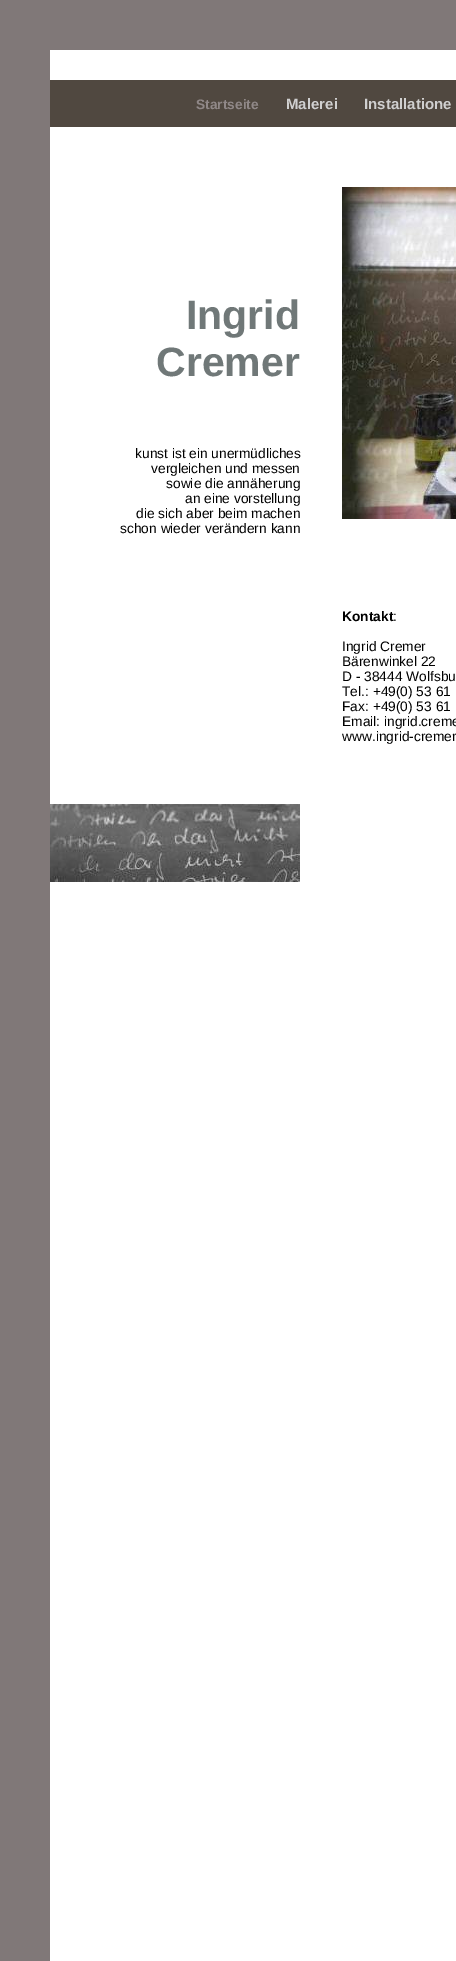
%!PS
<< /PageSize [456 1961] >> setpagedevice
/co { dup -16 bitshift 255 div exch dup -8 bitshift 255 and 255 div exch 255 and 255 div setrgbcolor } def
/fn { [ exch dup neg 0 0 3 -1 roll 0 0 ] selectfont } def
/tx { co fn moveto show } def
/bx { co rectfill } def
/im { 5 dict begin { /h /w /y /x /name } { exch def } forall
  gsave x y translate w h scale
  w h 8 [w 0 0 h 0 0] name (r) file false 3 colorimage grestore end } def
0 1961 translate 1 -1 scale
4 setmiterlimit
0 0 456 1961 16#FFFFFF bx
0 0 456 50 16#807878 bx
0 50 50 1911 16#807878 bx
50 80 406 47 16#504840 bx
(media/1.raw) 342 187 114 332 im
(media/2.raw) 50 804 250 78 im
(Startseite) 196 109 /LiberationSans-Bold 13.75 16#908888 tx
(Malerei) 286 109 /LiberationSans-Bold 15 16#D0D0D0 tx
(Installatione) 364 109 /LiberationSans-Bold 15 16#D0D0D0 tx
(Ingrid) 186 329 /LiberationSans-Bold 41 16#707878 tx
(Cremer) 156 376 /LiberationSans-Bold 41 16#707878 tx
(kunst ist ein unermüdliches) 135 458 /LiberationSans-Regular 13.75 16#000000 tx
(vergleichen und messen) 151 473 /LiberationSans-Regular 13.75 16#000000 tx
(sowie die annäherung) 166 488 /LiberationSans-Regular 13.75 16#000000 tx
(an eine vorstellung) 185 503 /LiberationSans-Regular 13.75 16#000000 tx
(die sich aber beim machen) 136 518 /LiberationSans-Regular 13.75 16#000000 tx
(schon wieder verändern kann) 120 533 /LiberationSans-Regular 13.75 16#000000 tx
(Kontakt) 342 621 /LiberationSans-Bold 13.75 16#000000 tx
(:) 393 621 /LiberationSans-Regular 13.75 16#000000 tx
(Ingrid Cremer) 342 651 /LiberationSans-Regular 13.75 16#000000 tx
(Bärenwinkel 22) 342 666 /LiberationSans-Regular 13.75 16#000000 tx
(D - 38444 Wolfsbu) 342 681 /LiberationSans-Regular 13.75 16#000000 tx
(Tel.: +49\(0\) 53 61) 342 696 /LiberationSans-Regular 13.75 16#000000 tx
(Fax: +49\(0\) 53 61) 342 711 /LiberationSans-Regular 13.75 16#000000 tx
(Email: ingrid.creme) 342 726 /LiberationSans-Regular 13.75 16#000000 tx
(www.ingrid-cremer) 342 741 /LiberationSans-Regular 13.75 16#000000 tx
showpage
